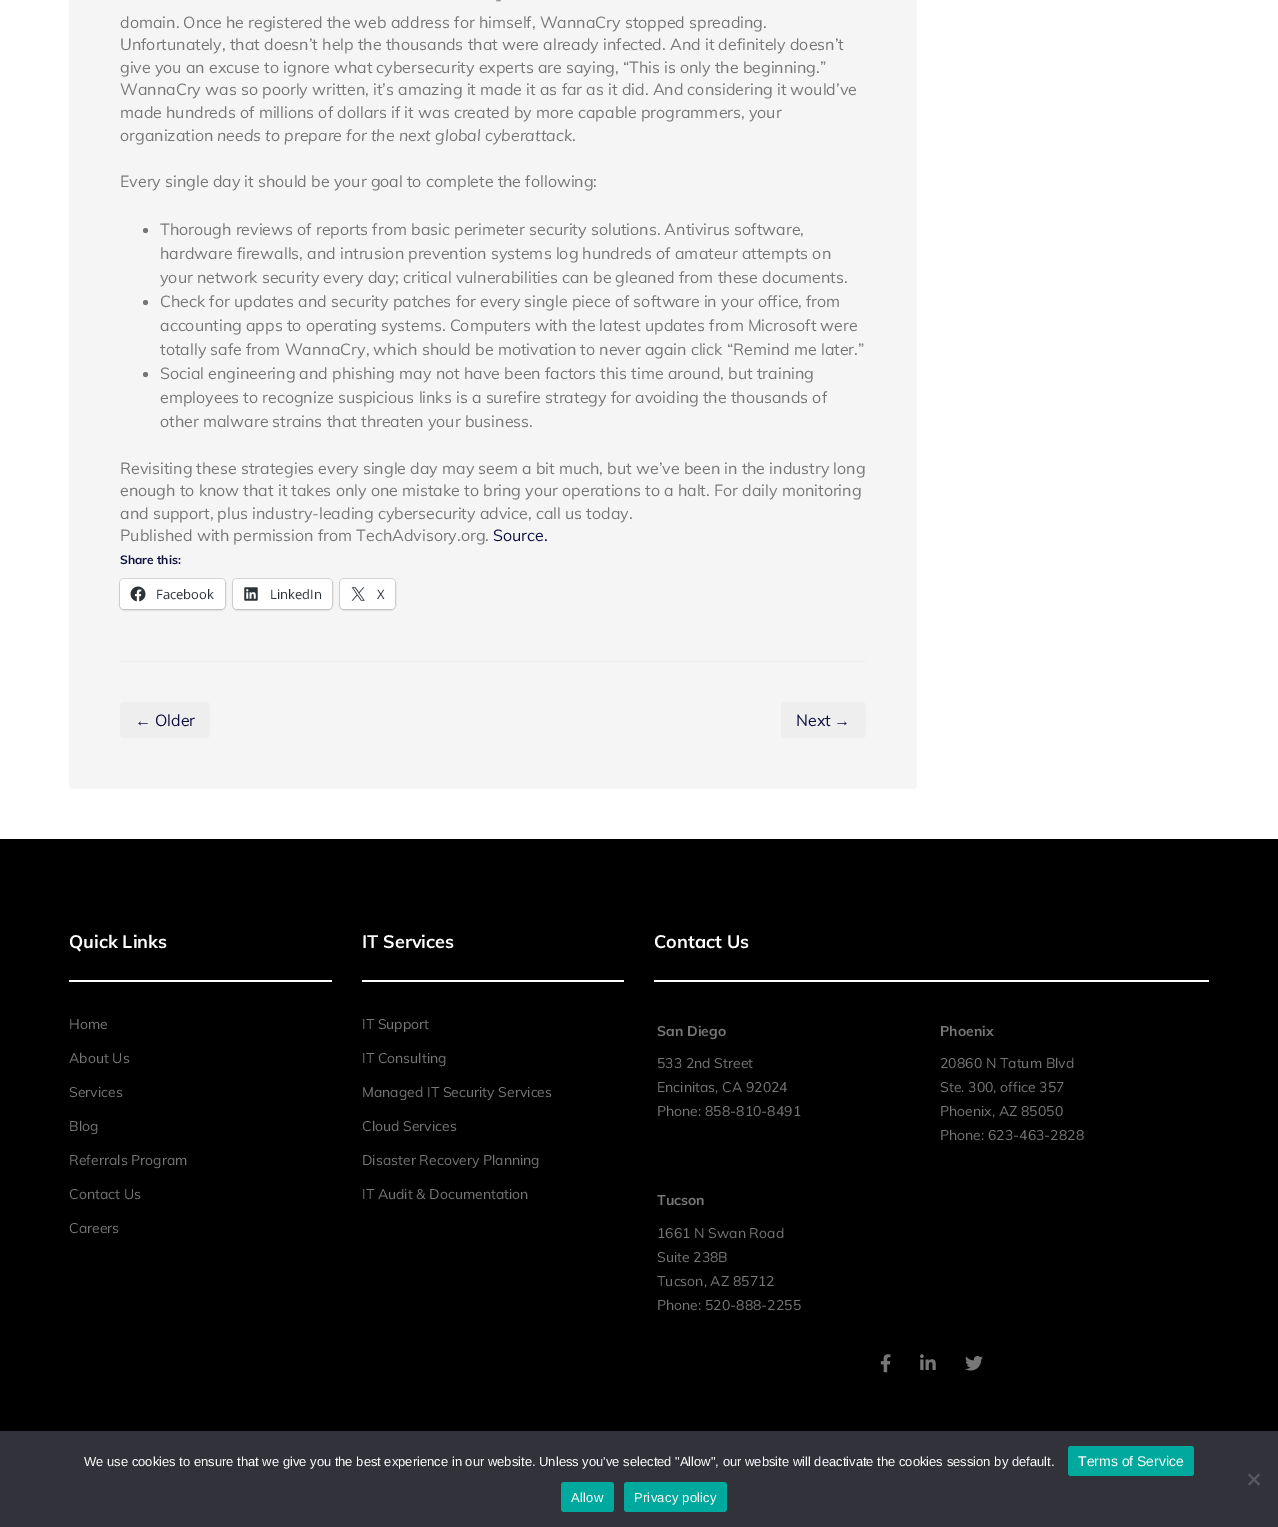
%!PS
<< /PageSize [1278 1527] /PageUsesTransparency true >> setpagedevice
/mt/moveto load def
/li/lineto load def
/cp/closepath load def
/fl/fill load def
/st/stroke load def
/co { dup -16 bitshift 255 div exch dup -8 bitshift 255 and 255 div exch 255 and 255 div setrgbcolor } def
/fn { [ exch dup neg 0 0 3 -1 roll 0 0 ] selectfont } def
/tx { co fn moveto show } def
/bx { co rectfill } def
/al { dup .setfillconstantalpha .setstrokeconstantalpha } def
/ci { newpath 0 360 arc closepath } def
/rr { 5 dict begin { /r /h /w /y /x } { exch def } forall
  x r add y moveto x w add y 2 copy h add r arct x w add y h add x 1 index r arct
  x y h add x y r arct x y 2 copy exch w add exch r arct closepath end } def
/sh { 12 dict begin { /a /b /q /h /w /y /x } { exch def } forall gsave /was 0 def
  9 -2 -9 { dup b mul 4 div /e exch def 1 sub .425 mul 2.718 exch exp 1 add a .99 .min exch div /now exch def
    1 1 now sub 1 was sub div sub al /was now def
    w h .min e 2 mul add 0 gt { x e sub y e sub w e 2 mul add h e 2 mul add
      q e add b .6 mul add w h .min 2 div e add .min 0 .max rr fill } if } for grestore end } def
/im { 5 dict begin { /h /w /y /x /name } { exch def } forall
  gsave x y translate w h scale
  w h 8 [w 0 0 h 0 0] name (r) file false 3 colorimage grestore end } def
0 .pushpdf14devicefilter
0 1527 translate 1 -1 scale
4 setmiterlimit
0 0 1278 1527 16#FFFFFF bx
16#F5F5F5 co
69 -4 848 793 4 rr fl
16#777777 co
145.5 230.5 2.5 ci fl
145.5 302.5 2.5 ci fl
145.5 374.5 2.5 ci fl
16#D8D8D8 co
119.5 578.5 106 31 4.5 rr st
16#000000 co
120 580 105 30 4 1 .12 sh
16#FFFFFF co
120 579 105 30 4 rr fl
(media/1.raw) 130 586 16 16 im
16#D8D8D8 co
232.5 578.5 100 31 4.5 rr st
16#000000 co
233 580 99 30 4 1 .12 sh
16#FFFFFF co
233 579 99 30 4 rr fl
(media/2.raw) 244 587 14 14 im
16#D8D8D8 co
339.5 578.5 56 31 4.5 rr st
16#000000 co
340 580 55 30 4 1 .12 sh
16#FFFFFF co
340 579 55 30 4 rr fl
(media/3.raw) 351 587 14 14 im
120 661 746 1 16#EEEEEE bx
120 702 90 36 4 rr fl
781 702 85 36 4 rr fl
0 839 1278 592 16#000000 bx
69 980 263 2 16#FFFFFF bx
362 980 262 2 16#FFFFFF bx
654 980 555 2 16#FFFFFF bx
(media/4.raw) 880 1354 11 19 im
(media/5.raw) 920 1354 16 16 im
(media/6.raw) 965 1356 18 15 im
0 1431 1278 96 16#32323A bx
16#00A99D co
1068 1446 126 30 3 rr fl
16#59595D co
1258.5 1473.5 mt 1260 1475 li 1249.5 1485.5 li 1248 1484 li cp fl
1248 1475 mt 1249.5 1473.5 li 1260 1484 li 1258.5 1485.5 li cp fl
16#00A99D co
561 1482 53 30 3 rr fl
624 1482 103 30 3 rr fl
(-) 495 5 /Muli-Regular 16 16#777777 tx
(domain. Once he registered the web address for himself, WannaCry stopped spreading.) 120 28 /Muli-Regular 16 16#777777 tx
(Unfortunately, that doesn’t help the thousands that were already infected. And it definitely doesn’t) 120 50 /Muli-Regular 16 16#777777 tx
(give you an excuse to ignore what cybersecurity experts are saying, “This is only the beginning.”) 120 73 /Muli-Regular 16 16#777777 tx
(WannaCry was so poorly written, it’s amazing it made it as far as it did. And considering it would’ve) 120 95 /Muli-Regular 16 16#777777 tx
(made hundreds of millions of dollars if it was created by more capable programmers, your) 120 118 /Muli-Regular 16 16#777777 tx
(organization) 120 141 /Muli-Regular 16 16#777777 tx
(needs to prepare for the next global cyberattack) 217 141 /Muli-Italic 16 16#777777 tx
(.) 572 141 /Muli-Regular 16 16#777777 tx
(Every single day it should be your goal to complete the following:) 120 187 /Muli-Regular 16 16#777777 tx
(Thorough reviews of reports from basic perimeter security solutions. Antivirus software,) 160 235 /Muli-Regular 16 16#777777 tx
(hardware firewalls, and intrusion prevention systems log hundreds of amateur attempts on) 160 259 /Muli-Regular 16 16#777777 tx
(your network security every day; critical vulnerabilities can be gleaned from these documents.) 160 283 /Muli-Regular 16 16#777777 tx
(Check for updates and security patches for every single piece of software in your office, from) 160 307 /Muli-Regular 16 16#777777 tx
(accounting apps to operating systems. Computers with the latest updates from Microsoft were) 160 331 /Muli-Regular 16 16#777777 tx
(totally safe from WannaCry, which should be motivation to never again click “Remind me later.”) 160 355 /Muli-Regular 16 16#777777 tx
(Social engineering and phishing may not have been factors this time around, but training) 160 379 /Muli-Regular 16 16#777777 tx
(employees to recognize suspicious links is a surefire strategy for avoiding the thousands of) 160 403 /Muli-Regular 16 16#777777 tx
(other malware strains that threaten your business.) 160 427 /Muli-Regular 16 16#777777 tx
(Revisiting these strategies every single day may seem a bit much, but we’ve been in the industry long) 120 474 /Muli-Regular 16 16#777777 tx
(enough to know that it takes only one mistake to bring your operations to a halt. For daily monitoring) 120 496 /Muli-Regular 16 16#777777 tx
(and support, plus industry-leading cybersecurity advice, call us today.) 120 519 /Muli-Regular 16 16#777777 tx
(Published with permission from TechAdvisory.org.) 120 541 /Muli-Regular 16 16#777777 tx
(Source.) 493 541 /Muli-Regular 16 16#0E1041 tx
(Share this:) 120 564 /Muli-Bold 12 16#0E1041 tx
(Facebook) 156 599 /OpenSans-Regular 13 16#2C3338 tx
(LinkedIn) 270 599 /OpenSans-Regular 13 16#2C3338 tx
(X) 377 599 /OpenSans-Regular 13 16#2C3338 tx
(←) 135 726 /LiberationSans-Regular 16 16#0E1041 tx
(Older) 155 726 /Muli-Regular 16 16#0E1041 tx
(Next) 796 726 /Muli-Regular 16 16#0E1041 tx
(→) 834 726 /LiberationSans-Regular 16 16#0E1041 tx
(Quick Links) 69 948 /Muli-Bold 18 16#FFFFFF tx
(Home) 69 1029 /Muli-Regular 14 16#777777 tx
(About Us) 69 1063 /Muli-Regular 14 16#777777 tx
(Services) 69 1097 /Muli-Regular 14 16#777777 tx
(Blog) 69 1131 /Muli-Regular 14 16#777777 tx
(Referrals Program) 69 1165 /Muli-Regular 14 16#777777 tx
(Contact Us) 69 1199 /Muli-Regular 14 16#777777 tx
(Careers) 69 1233 /Muli-Regular 14 16#777777 tx
(IT Services) 362 948 /Muli-Bold 18 16#FFFFFF tx
(IT Support) 362 1029 /Muli-Regular 14 16#777777 tx
(IT Consulting) 362 1063 /Muli-Regular 14 16#777777 tx
(Managed IT Security Services) 362 1097 /Muli-Regular 14 16#777777 tx
(Cloud Services) 362 1131 /Muli-Regular 14 16#777777 tx
(Disaster Recovery Planning) 362 1165 /Muli-Regular 14 16#777777 tx
(IT Audit & Documentation) 362 1199 /Muli-Regular 14 16#777777 tx
(Contact Us) 654 948 /Muli-Bold 18 16#FFFFFF tx
(San Diego) 657 1036 /Muli-Bold 14 16#777777 tx
(533 2nd Street) 657 1068 /Muli-Regular 14 16#777777 tx
(Encinitas, CA 92024) 657 1092 /Muli-Regular 14 16#777777 tx
(Phone: 858-810-8491) 657 1116 /Muli-Regular 14 16#777777 tx
(Phoenix) 940 1036 /Muli-Bold 14 16#777777 tx
(20860 N Tatum Blvd) 940 1068 /Muli-Regular 14 16#777777 tx
(Ste. 300, office 357) 940 1092 /Muli-Regular 14 16#777777 tx
(Phoenix, AZ 85050) 940 1116 /Muli-Regular 14 16#777777 tx
(Phone: 623-463-2828) 940 1140 /Muli-Regular 14 16#777777 tx
(Tucson) 657 1205 /Muli-Bold 14 16#777777 tx
(1661 N Swan Road) 657 1238 /Muli-Regular 14 16#777777 tx
(Suite 238B) 657 1262 /Muli-Regular 14 16#777777 tx
(Tucson, AZ 85712) 657 1286 /Muli-Regular 14 16#777777 tx
(Phone: 520-888-2255) 657 1310 /Muli-Regular 14 16#777777 tx
(We use cookies to ensure that we give you the best experience in our website. Unless you've selected "Allow", our website will deactivate the cookies session by default.) 84 1466 /LiberationSans-Regular 13 16#FFFFFF tx
(Terms of Service) 1078 1466 /LiberationSans-Regular 14 16#FFFFFF tx
/LiberationSans-Regular 13 fn
571 1502 mt .25 0 (Allow) ashow
634 1502 mt .25 0 (Privacy policy) ashow
.poppdf14devicefilter showpage
